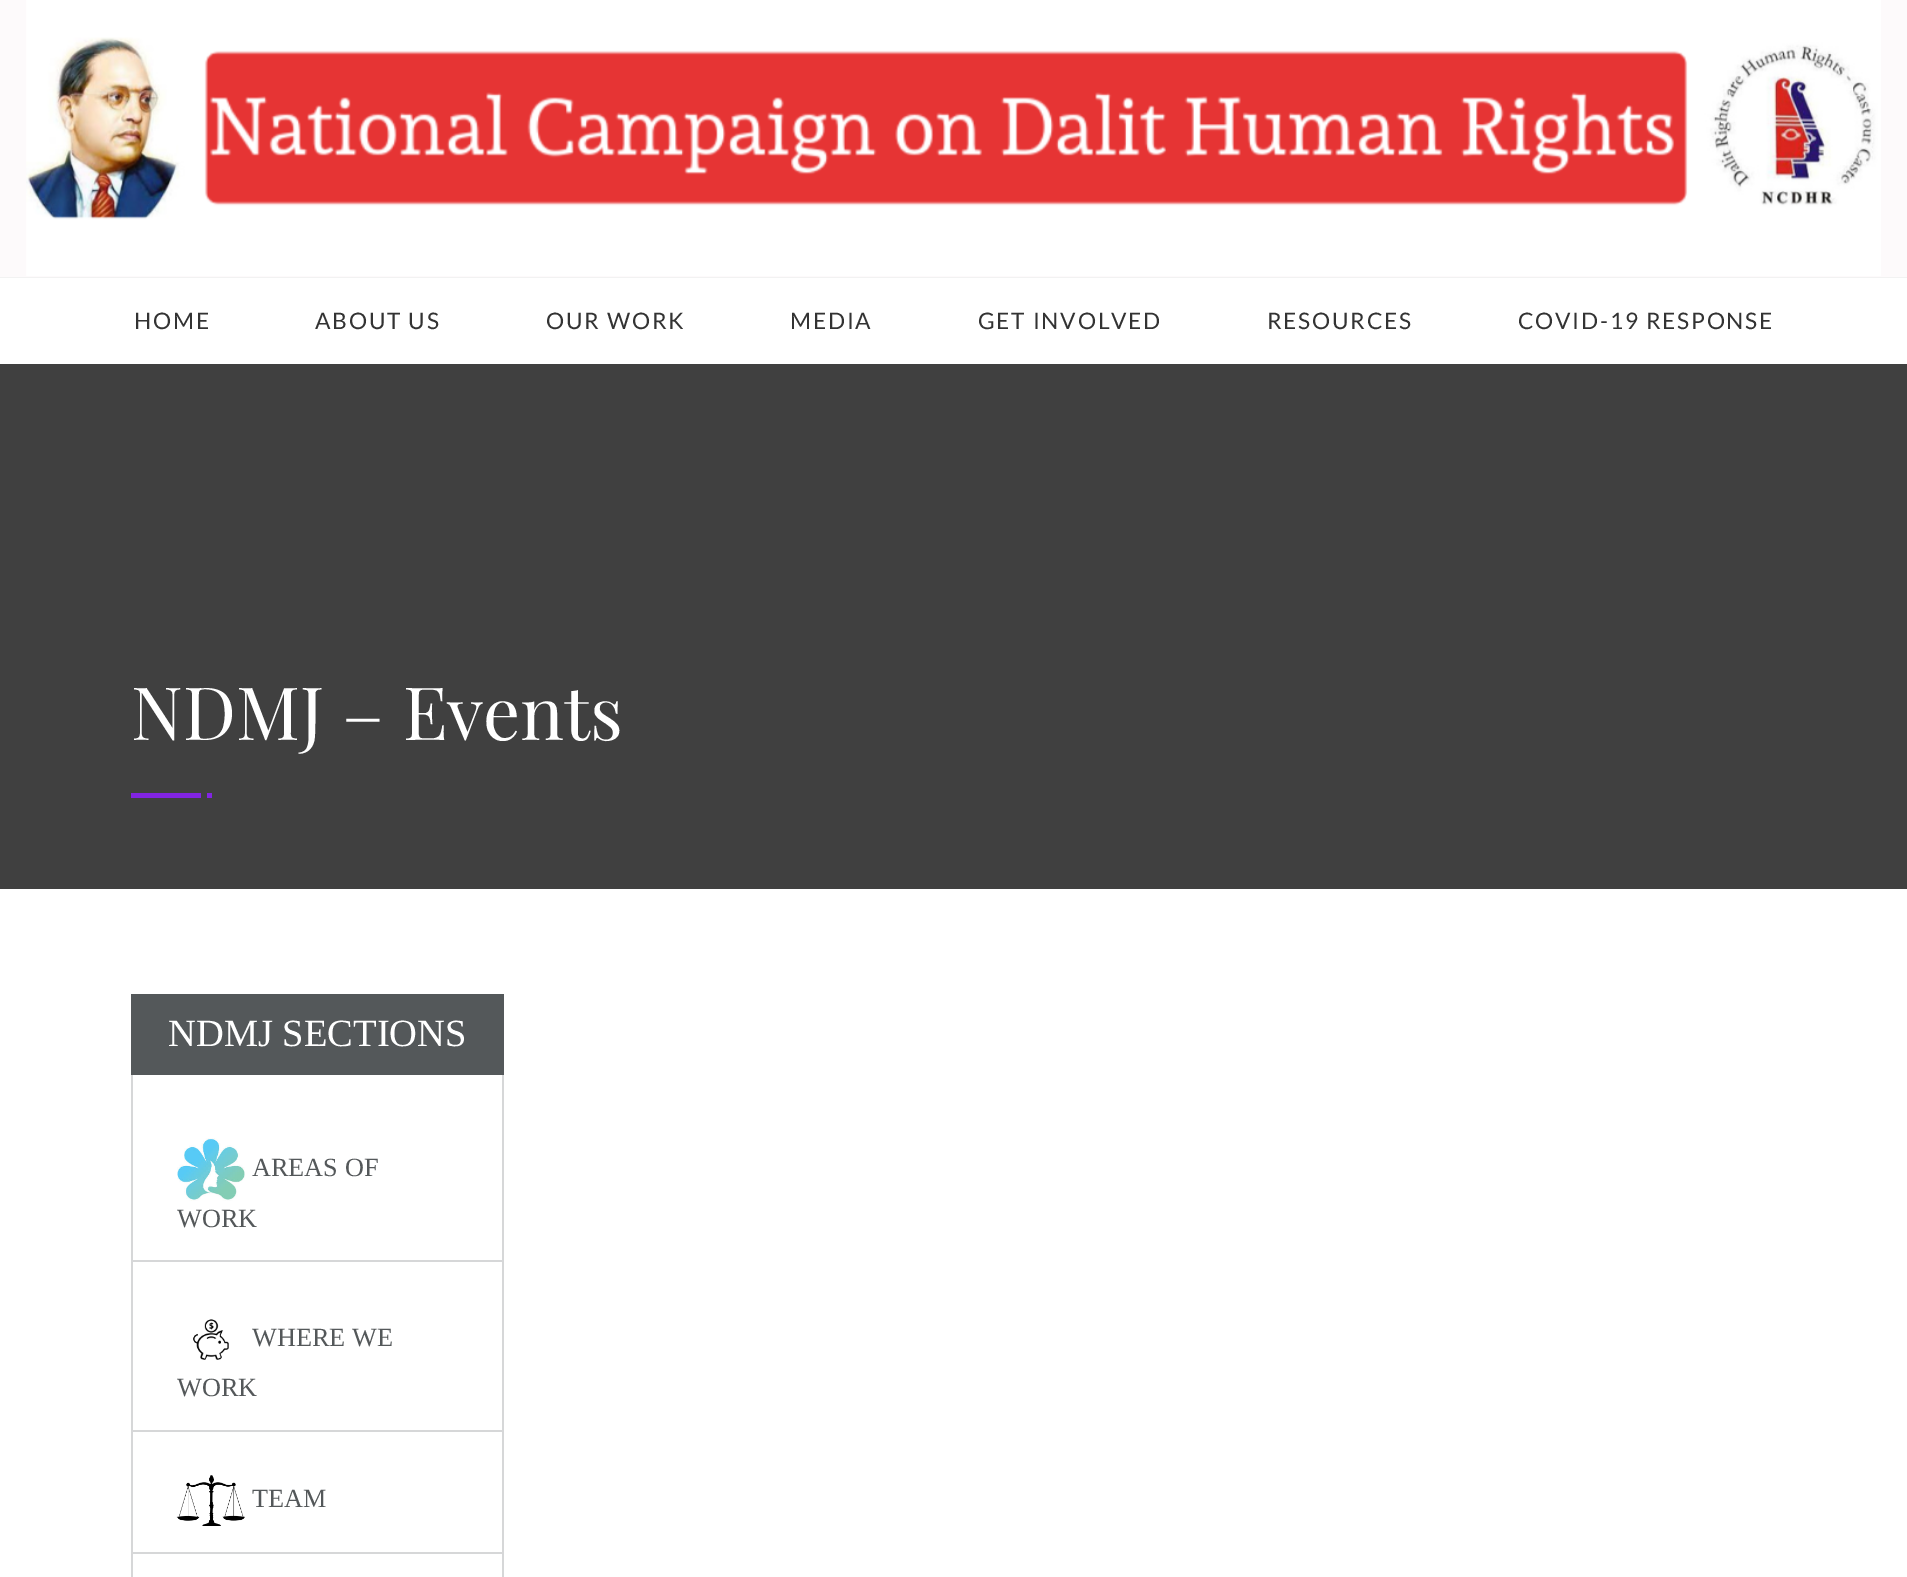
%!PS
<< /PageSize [1907 1577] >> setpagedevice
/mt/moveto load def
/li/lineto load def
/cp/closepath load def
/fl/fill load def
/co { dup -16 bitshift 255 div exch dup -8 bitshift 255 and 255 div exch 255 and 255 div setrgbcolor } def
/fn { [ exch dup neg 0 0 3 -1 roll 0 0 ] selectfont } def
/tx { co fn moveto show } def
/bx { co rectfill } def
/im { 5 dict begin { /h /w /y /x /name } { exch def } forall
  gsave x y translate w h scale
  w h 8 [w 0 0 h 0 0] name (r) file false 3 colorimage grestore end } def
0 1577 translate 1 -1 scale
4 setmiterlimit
0 0 1907 1577 16#FFFFFF bx
16#F2F2F2 co
0 276 mt 0 278 li 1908 278 li 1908 2 li 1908 276 li cp fl
0 0 1907 277 16#FDFAFB bx
(media/1.raw) 26 0 1855 276 im
0 364 1907 525 16#404040 bx
131 793 70 5 16#8224E3 bx
207 793 5 5 16#8224E3 bx
131 994 373 81 16#54585A bx
502 1075 2 502 16#D6D7D8 bx
131 1075 2 502 16#D6D7D8 bx
133 1260 369 2 16#D6D7D8 bx
(media/2.raw) 177 1138 68 63 im
133 1430 369 2 16#D6D7D8 bx
(media/3.raw) 193 1319 36 41 im
133 1552 369 2 16#D6D7D8 bx
(media/4.raw) 176 1475 69 51 im
/Lato-Regular 22.75 fn
16#333333 co
134 329 mt 1.75 0 (HOME) ashow
315 329 mt 1.75 0 (ABOUT US) ashow
546 329 mt 1.75 0 (OUR WORK) ashow
790 329 mt 1.75 0 (MEDIA) ashow
978 329 mt 1.75 0 (GET INVOLVED) ashow
1267 329 mt 1.75 0 (RESOURCES) ashow
1518 329 mt 1.75 0 (COVID-19 RESPONSE) ashow
(NDMJ – Events) 131 740 /PlayfairDisplay-Regular 73.5 16#FFFFFF tx
(NDMJ SECTIONS) 168 1046 /LiberationSerif-Regular 38.5 16#FFFFFF tx
(AREAS OF) 252 1176 /LiberationSerif-Regular 26.25 16#54585A tx
(WORK) 177 1227 /LiberationSerif-Regular 26.25 16#54585A tx
(WHERE WE) 252 1346 /LiberationSerif-Regular 26.25 16#54585A tx
(WORK) 177 1396 /LiberationSerif-Regular 26.25 16#54585A tx
(TEAM) 252 1507 /LiberationSerif-Regular 26.25 16#54585A tx
showpage
